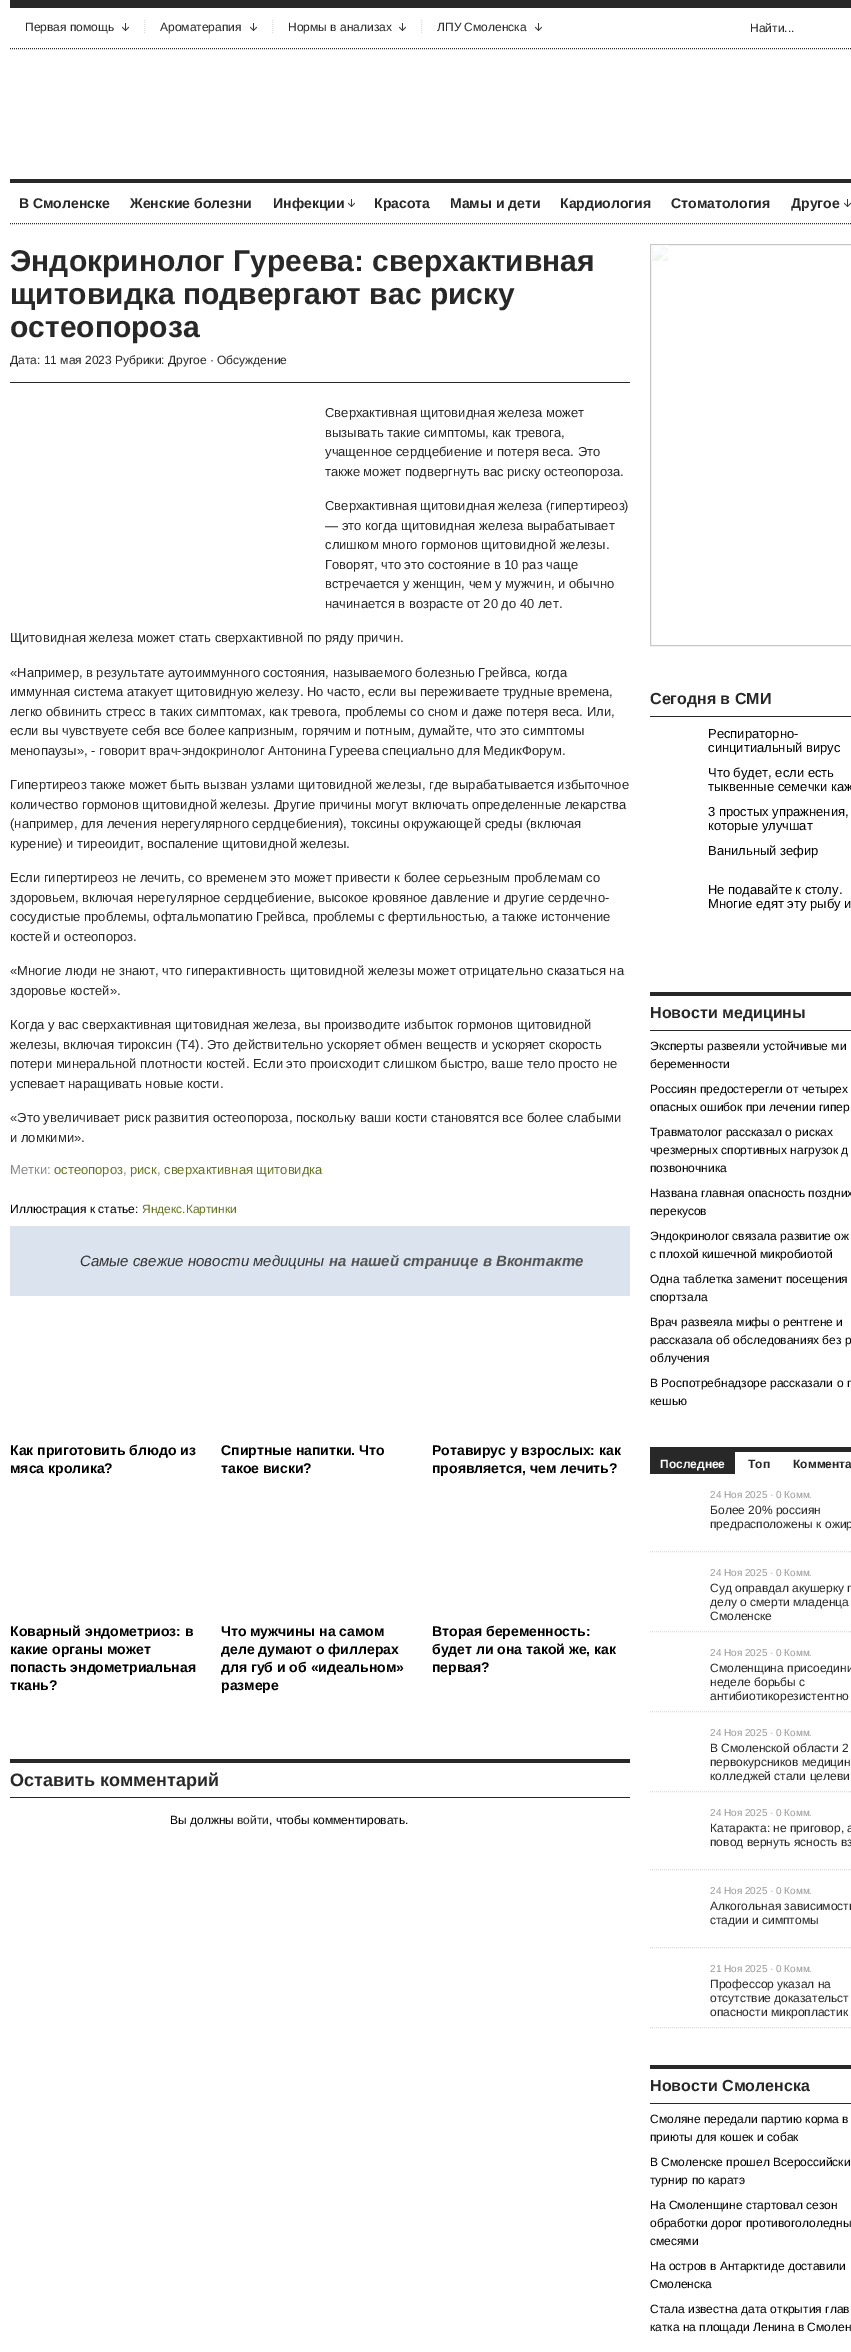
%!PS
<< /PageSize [851 2352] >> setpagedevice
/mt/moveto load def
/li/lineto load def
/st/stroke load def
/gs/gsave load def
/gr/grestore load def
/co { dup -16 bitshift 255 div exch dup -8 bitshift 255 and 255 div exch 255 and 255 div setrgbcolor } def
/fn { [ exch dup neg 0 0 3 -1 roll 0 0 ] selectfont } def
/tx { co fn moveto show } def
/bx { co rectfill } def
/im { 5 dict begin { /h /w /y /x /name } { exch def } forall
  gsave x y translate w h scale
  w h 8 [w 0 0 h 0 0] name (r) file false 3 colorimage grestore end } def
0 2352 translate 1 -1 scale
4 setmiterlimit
0 0 851 2352 16#FFFFFF bx
10 0 841 8 16#282828 bx
[1 1] 0 setdash
10 48.5 mt 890 48.5 li st
(media/1.raw) 122 23 7 8 im
16#DDDDDD co
144.5 20 mt 144.5 34 li st
(media/1.raw) 250 23 7 8 im
272.5 20 mt 272.5 34 li st
(media/1.raw) 399 23 7 8 im
421.5 20 mt 421.5 34 li st
(media/1.raw) 535 23 7 8 im
10 179 841 4 16#282828 bx
10 223.5 mt 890 223.5 li st
(media/1.raw) 348 199 7 8 im
(media/1.raw) 844 199 7 8 im
10 382 620 1 16#282828 bx
10 1226 620 70 16#DBE4EE bx
10 1759 620 4 16#282828 bx
10 1797 620 1 16#282828 bx
16#C7C7C7 co
[] 0 setdash
650.5 244.5 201 401 rectstroke
(media/2.raw) 651 245 17 16 im
650 716 201 1 16#282828 bx
650 992 201 4 16#282828 bx
650 1030 201 1 16#282828 bx
650 1447 201 5 16#282828 bx
650 1452 85 22 16#282828 bx
16#DDDDDD co
[1 1] 0 setdash
650 1551.5 mt 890 1551.5 li st
650 1631.5 mt 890 1631.5 li st
650 1711.5 mt 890 1711.5 li st
650 1791.5 mt 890 1791.5 li st
650 1869.5 mt 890 1869.5 li st
650 1947.5 mt 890 1947.5 li st
650 2027.5 mt 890 2027.5 li st
650 2065 201 4 16#282828 bx
650 2103 201 1 16#282828 bx
(Первая помощь) 25 31 /LiberationSans-Regular 12 16#282828 tx
(Ароматерапия) 160 31 /LiberationSans-Regular 12 16#282828 tx
(Нормы в анализах) 288 31 /LiberationSans-Regular 12 16#282828 tx
(ЛПУ Смоленска) 437 31 /LiberationSans-Regular 12 16#282828 tx
(Найти...) 750 32 /LiberationSans-Regular 12 16#282828 tx
(В Смоленске) 19 208 /LiberationSans-Bold 14 16#282828 tx
(Женские болезни) 130 208 /LiberationSans-Bold 14 16#282828 tx
(Инфекции) 273 208 /LiberationSans-Bold 14 16#282828 tx
(Красота) 374 208 /LiberationSans-Bold 14 16#282828 tx
(Мамы и дети) 450 208 /LiberationSans-Bold 14 16#282828 tx
(Кардиология) 560 208 /LiberationSans-Bold 14 16#282828 tx
(Стоматология) 671 208 /LiberationSans-Bold 14 16#282828 tx
(Другое) 791 208 /LiberationSans-Bold 14 16#282828 tx
(Эндокринолог Гуреева: сверхактивная) 10 271 /LiberationSans-Bold 30 16#282828 tx
(щитовидка подвергают вас риску) 10 304 /LiberationSans-Bold 30 16#282828 tx
(остеопороза) 10 337 /LiberationSans-Bold 30 16#282828 tx
(Дата: 11 мая 2023 Рубрики: Другое · Обсуждение) 10 364 /LiberationSans-Regular 12 16#282828 tx
(Сверхактивная щитовидная железа может) 325 417 /LiberationSans-Regular 13 16#282828 tx
(вызывать такие симптомы, как тревога,) 325 437 /LiberationSans-Regular 13 16#282828 tx
(учащенное сердцебиение и потеря веса. Это) 325 456 /LiberationSans-Regular 13 16#282828 tx
(также может подвергнуть вас риску остеопороза.) 325 476 /LiberationSans-Regular 13 16#282828 tx
(Сверхактивная щитовидная железа \(гипертиреоз\)) 325 510 /LiberationSans-Regular 13 16#282828 tx
(— это когда щитовидная железа вырабатывает) 325 530 /LiberationSans-Regular 13 16#282828 tx
(слишком много гормонов щитовидной железы.) 325 549 /LiberationSans-Regular 13 16#282828 tx
(Говорят, что это состояние в 10 раз чаще) 325 569 /LiberationSans-Regular 13 16#282828 tx
(встречается у женщин, чем у мужчин, и обычно) 325 588 /LiberationSans-Regular 13 16#282828 tx
(начинается в возрасте от 20 до 40 лет.) 325 608 /LiberationSans-Regular 13 16#282828 tx
(Щитовидная железа может стать сверхактивной по ряду причин.) 10 642 /LiberationSans-Regular 13 16#282828 tx
(«Например, в результате аутоиммунного состояния, называемого болезнью Грейвса, когда) 10 677 /LiberationSans-Regular 13 16#282828 tx
(иммунная система атакует щитовидную железу. Но часто, если вы переживаете трудные времена,) 10 696 /LiberationSans-Regular 13 16#282828 tx
(легко обвинить стресс в таких симптомах, как тревога, проблемы со сном и даже потеря веса. Или,) 10 716 /LiberationSans-Regular 13 16#282828 tx
(если вы чувствуете себя все более капризным, горячим и потным, думайте, что это симптомы) 10 735 /LiberationSans-Regular 13 16#282828 tx
(менопаузы», - говорит врач-эндокринолог Антонина Гуреева специально для МедикФорум.) 10 755 /LiberationSans-Regular 13 16#282828 tx
(Гипертиреоз также может быть вызван узлами щитовидной железы, где вырабатывается избыточное) 10 789 /LiberationSans-Regular 13 16#282828 tx
(количество гормонов щитовидной железы. Другие причины могут включать определенные лекарства) 10 809 /LiberationSans-Regular 13 16#282828 tx
(\(например, для лечения нерегулярного сердцебиения\), токсины окружающей среды \(включая) 10 828 /LiberationSans-Regular 13 16#282828 tx
(курение\) и тиреоидит, воспаление щитовидной железы.) 10 848 /LiberationSans-Regular 13 16#282828 tx
(Если гипертиреоз не лечить, со временем это может привести к более серьезным проблемам со) 10 882 /LiberationSans-Regular 13 16#282828 tx
(здоровьем, включая нерегулярное сердцебиение, высокое кровяное давление и другие сердечно-) 10 902 /LiberationSans-Regular 13 16#282828 tx
(сосудистые проблемы, офтальмопатию Грейвса, проблемы с фертильностью, а также истончение) 10 921 /LiberationSans-Regular 13 16#282828 tx
(костей и остеопороз.) 10 941 /LiberationSans-Regular 13 16#282828 tx
(«Многие люди не знают, что гиперактивность щитовидной железы может отрицательно сказаться на) 10 975 /LiberationSans-Regular 13 16#282828 tx
(здоровье костей».) 10 995 /LiberationSans-Regular 13 16#282828 tx
(Когда у вас сверхактивная щитовидная железа, вы производите избыток гормонов щитовидной) 10 1029 /LiberationSans-Regular 13 16#282828 tx
(железы, включая тироксин \(Т4\). Это действительно ускоряет обмен веществ и ускоряет скорость) 10 1049 /LiberationSans-Regular 13 16#282828 tx
(потери минеральной плотности костей. Если это происходит слишком быстро, ваше тело просто не) 10 1068 /LiberationSans-Regular 13 16#282828 tx
(успевает наращивать новые кости.) 10 1088 /LiberationSans-Regular 13 16#282828 tx
(«Это увеличивает риск развития остеопороза, поскольку ваши кости становятся все более слабыми) 10 1122 /LiberationSans-Regular 13 16#282828 tx
(и ломкими».) 10 1142 /LiberationSans-Regular 13 16#282828 tx
(Метки:) 10 1174 /LiberationSans-Regular 13 16#898989 tx
(остеопороз) 54 1174 /LiberationSans-Regular 13 16#667321 tx
(,) 123 1174 /LiberationSans-Regular 13 16#898989 tx
(риск) 130 1174 /LiberationSans-Regular 13 16#667321 tx
(,) 157 1174 /LiberationSans-Regular 13 16#898989 tx
(сверхактивная щитовидка) 164 1174 /LiberationSans-Regular 13 16#667321 tx
(Иллюстрация к статье:) 10 1213 /LiberationSans-Regular 12 16#000000 tx
(Яндекс.Картинки) 142 1213 /LiberationSans-Regular 12 16#667321 tx
(Самые свежие новости медицины) 80 1266 /LiberationSans-Italic 15 16#333333 tx
(на нашей странице в Вконтакте) 329 1266 /LiberationSans-BoldItalic 15 16#555555 tx
(Как приготовить блюдо из) 10 1455 /LiberationSans-Bold 14 16#000000 tx
(мяса кролика?) 10 1473 /LiberationSans-Bold 14 16#000000 tx
(Спиртные напитки. Что) 221 1455 /LiberationSans-Bold 14 16#000000 tx
(такое виски?) 221 1473 /LiberationSans-Bold 14 16#000000 tx
(Ротавирус у взрослых: как) 432 1455 /LiberationSans-Bold 14 16#000000 tx
(проявляется, чем лечить?) 432 1473 /LiberationSans-Bold 14 16#000000 tx
(Коварный эндометриоз: в) 10 1636 /LiberationSans-Bold 14 16#000000 tx
(какие органы может) 10 1654 /LiberationSans-Bold 14 16#000000 tx
(попасть эндометриальная) 10 1672 /LiberationSans-Bold 14 16#000000 tx
(ткань?) 10 1690 /LiberationSans-Bold 14 16#000000 tx
(Что мужчины на самом) 221 1636 /LiberationSans-Bold 14 16#000000 tx
gs
221 1622 198 72 rectclip
(деле думают о филлерах) 221 1654 /LiberationSans-Bold 14 16#000000 tx
(для губ и об «идеальном») 221 1672 /LiberationSans-Bold 14 16#000000 tx
gr
(размере) 221 1690 /LiberationSans-Bold 14 16#000000 tx
(Вторая беременность:) 432 1636 /LiberationSans-Bold 14 16#000000 tx
(будет ли она такой же, как) 432 1654 /LiberationSans-Bold 14 16#000000 tx
(первая?) 432 1672 /LiberationSans-Bold 14 16#000000 tx
(Оставить комментарий) 10 1786 /LiberationSans-Bold 18 16#282828 tx
(Вы должны) 170 1824 /LiberationSans-Regular 12 16#000000 tx
(войти) 237 1824 /LiberationSans-Regular 12 16#282828 tx
(, чтобы комментировать.) 269 1824 /LiberationSans-Regular 12 16#000000 tx
(Сегодня в СМИ) 650 704 /LiberationSans-Bold 16 16#282828 tx
(Респираторно-) 708 738 /LiberationSans-Regular 13 16#000000 tx
(синцитиальный вирус) 708 752 /LiberationSans-Regular 13 16#000000 tx
(Что будет, если есть) 708 777 /LiberationSans-Regular 13 16#000000 tx
(тыквенные семечки каж) 708 791 /LiberationSans-Regular 13 16#000000 tx
(3 простых упражнения,) 708 816 /LiberationSans-Regular 13 16#000000 tx
(которые улучшат) 708 830 /LiberationSans-Regular 13 16#000000 tx
(Ванильный зефир) 708 855 /LiberationSans-Regular 13 16#000000 tx
(Не подавайте к столу.) 708 894 /LiberationSans-Regular 13 16#000000 tx
(Многие едят эту рыбу и) 708 908 /LiberationSans-Regular 13 16#000000 tx
(Новости медицины) 650 1018 /LiberationSans-Bold 16 16#282828 tx
(Эксперты развеяли устойчивые ми) 650 1050 /LiberationSans-Regular 12 16#000000 tx
(беременности) 650 1068 /LiberationSans-Regular 12 16#000000 tx
(Россиян предостерегли от четырех) 650 1093 /LiberationSans-Regular 12 16#000000 tx
(опасных ошибок при лечении гипер) 650 1111 /LiberationSans-Regular 12 16#000000 tx
(Травматолог рассказал о рисках) 650 1136 /LiberationSans-Regular 12 16#000000 tx
(чрезмерных спортивных нагрузок д) 650 1154 /LiberationSans-Regular 12 16#000000 tx
(позвоночника) 650 1172 /LiberationSans-Regular 12 16#000000 tx
(Названа главная опасность поздних) 650 1197 /LiberationSans-Regular 12 16#000000 tx
(перекусов) 650 1215 /LiberationSans-Regular 12 16#000000 tx
(Эндокринолог связала развитие ож) 650 1240 /LiberationSans-Regular 12 16#000000 tx
(с плохой кишечной микробиотой) 650 1258 /LiberationSans-Regular 12 16#000000 tx
(Одна таблетка заменит посещения) 650 1283 /LiberationSans-Regular 12 16#000000 tx
(спортзала) 650 1301 /LiberationSans-Regular 12 16#000000 tx
(Врач развеяла мифы о рентгене и) 650 1326 /LiberationSans-Regular 12 16#000000 tx
(рассказала об обследованиях без р) 650 1344 /LiberationSans-Regular 12 16#000000 tx
(облучения) 650 1362 /LiberationSans-Regular 12 16#000000 tx
(В Роспотребнадзоре рассказали о п) 650 1387 /LiberationSans-Regular 12 16#000000 tx
(кешью) 650 1405 /LiberationSans-Regular 12 16#000000 tx
(Последнее) 660 1468 /LiberationSans-Bold 12 16#FFFFFF tx
(Топ) 748 1468 /LiberationSans-Bold 12 16#282828 tx
(Коммента) 793 1468 /LiberationSans-Bold 12 16#282828 tx
(24 Ноя 2025 · 0 Комм.) 710 1498 /LiberationSans-Regular 10 16#999999 tx
(Более 20% россиян) 710 1514 /LiberationSans-Regular 12 16#282828 tx
(предрасположены к ожир) 710 1528 /LiberationSans-Regular 12 16#282828 tx
(24 Ноя 2025 · 0 Комм.) 710 1576 /LiberationSans-Regular 10 16#999999 tx
(Суд оправдал акушерку п) 710 1592 /LiberationSans-Regular 12 16#282828 tx
(делу о смерти младенца) 710 1606 /LiberationSans-Regular 12 16#282828 tx
(Смоленске) 710 1620 /LiberationSans-Regular 12 16#282828 tx
(24 Ноя 2025 · 0 Комм.) 710 1656 /LiberationSans-Regular 10 16#999999 tx
(Смоленщина присоедини) 710 1672 /LiberationSans-Regular 12 16#282828 tx
(неделе борьбы с) 710 1686 /LiberationSans-Regular 12 16#282828 tx
(антибиотикорезистентно) 710 1700 /LiberationSans-Regular 12 16#282828 tx
(24 Ноя 2025 · 0 Комм.) 710 1736 /LiberationSans-Regular 10 16#999999 tx
(В Смоленской области 2) 710 1752 /LiberationSans-Regular 12 16#282828 tx
(первокурсников медицин) 710 1766 /LiberationSans-Regular 12 16#282828 tx
(колледжей стали целеви) 710 1780 /LiberationSans-Regular 12 16#282828 tx
(24 Ноя 2025 · 0 Комм.) 710 1816 /LiberationSans-Regular 10 16#999999 tx
(Катаракта: не приговор, а) 710 1832 /LiberationSans-Regular 12 16#282828 tx
(повод вернуть ясность вз) 710 1846 /LiberationSans-Regular 12 16#282828 tx
(24 Ноя 2025 · 0 Комм.) 710 1894 /LiberationSans-Regular 10 16#999999 tx
(Алкогольная зависимость) 710 1910 /LiberationSans-Regular 12 16#282828 tx
(стадии и симптомы) 710 1924 /LiberationSans-Regular 12 16#282828 tx
(21 Ноя 2025 · 0 Комм.) 710 1972 /LiberationSans-Regular 10 16#999999 tx
(Профессор указал на) 710 1988 /LiberationSans-Regular 12 16#282828 tx
(отсутствие доказательст) 710 2002 /LiberationSans-Regular 12 16#282828 tx
(опасности микропластик) 710 2016 /LiberationSans-Regular 12 16#282828 tx
(Новости Смоленска) 650 2091 /LiberationSans-Bold 16 16#282828 tx
(Смоляне передали партию корма в) 650 2123 /LiberationSans-Regular 12 16#000000 tx
(приюты для кошек и собак) 650 2141 /LiberationSans-Regular 12 16#000000 tx
(В Смоленске прошел Всероссийски) 650 2166 /LiberationSans-Regular 12 16#000000 tx
(турнир по каратэ) 650 2184 /LiberationSans-Regular 12 16#000000 tx
(На Смоленщине стартовал сезон) 650 2209 /LiberationSans-Regular 12 16#000000 tx
(обработки дорог противогололедны) 650 2227 /LiberationSans-Regular 12 16#000000 tx
(смесями) 650 2245 /LiberationSans-Regular 12 16#000000 tx
(На остров в Антарктиде доставили) 650 2270 /LiberationSans-Regular 12 16#000000 tx
(Смоленска) 650 2288 /LiberationSans-Regular 12 16#000000 tx
(Стала известна дата открытия глав) 650 2313 /LiberationSans-Regular 12 16#000000 tx
(катка на площади Ленина в Смолен) 650 2331 /LiberationSans-Regular 12 16#000000 tx
showpage
